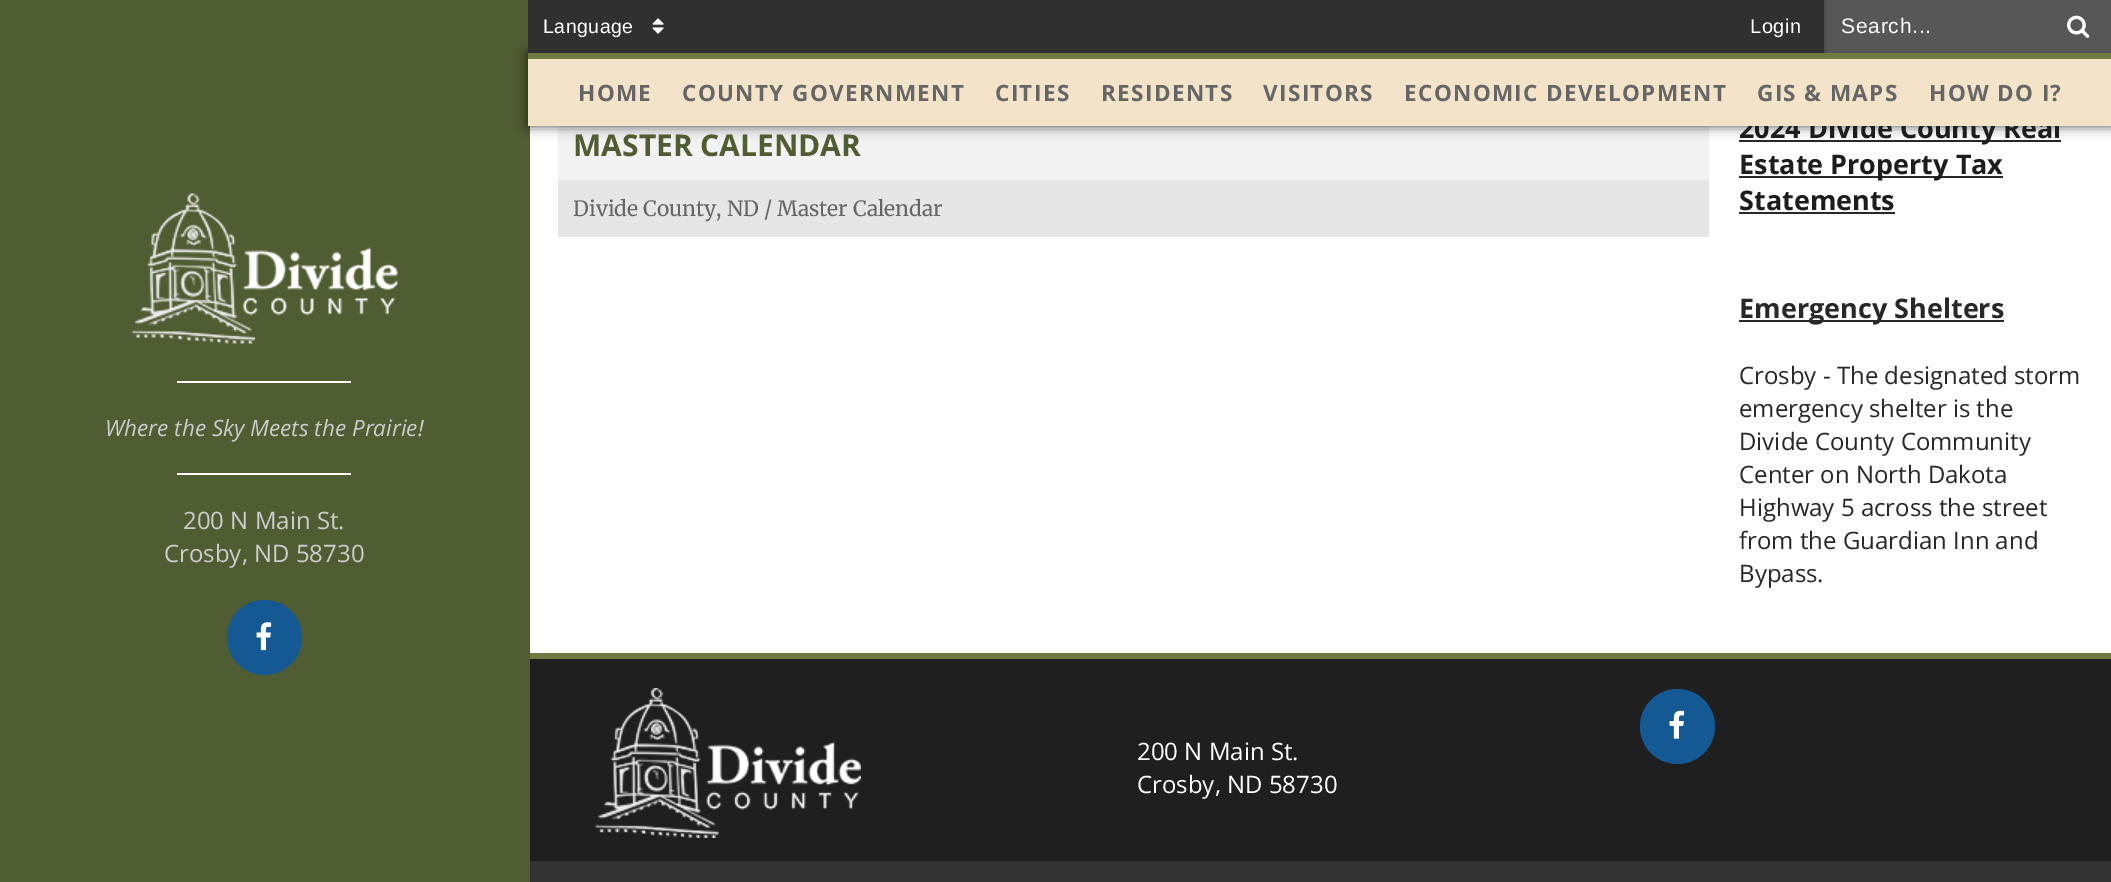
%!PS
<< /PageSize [2111 882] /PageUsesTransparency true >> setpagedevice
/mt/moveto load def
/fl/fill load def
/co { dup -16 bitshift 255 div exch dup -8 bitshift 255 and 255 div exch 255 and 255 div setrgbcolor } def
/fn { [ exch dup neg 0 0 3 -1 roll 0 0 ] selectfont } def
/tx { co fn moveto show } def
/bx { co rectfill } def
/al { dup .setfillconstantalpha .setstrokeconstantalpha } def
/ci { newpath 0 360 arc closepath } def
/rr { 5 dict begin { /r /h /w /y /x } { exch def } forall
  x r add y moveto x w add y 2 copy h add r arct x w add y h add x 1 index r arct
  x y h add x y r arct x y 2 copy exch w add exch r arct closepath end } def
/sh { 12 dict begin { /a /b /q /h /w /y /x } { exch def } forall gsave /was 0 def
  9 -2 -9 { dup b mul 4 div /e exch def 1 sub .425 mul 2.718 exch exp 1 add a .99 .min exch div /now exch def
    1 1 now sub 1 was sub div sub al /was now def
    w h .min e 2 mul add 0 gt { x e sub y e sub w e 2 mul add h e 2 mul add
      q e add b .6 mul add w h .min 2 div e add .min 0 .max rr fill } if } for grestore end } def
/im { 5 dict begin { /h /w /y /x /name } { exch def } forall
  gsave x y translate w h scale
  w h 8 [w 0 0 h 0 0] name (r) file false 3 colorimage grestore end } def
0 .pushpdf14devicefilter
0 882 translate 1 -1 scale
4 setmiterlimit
0 0 2111 882 16#FFFFFF bx
0 0 528 882 16#505C32 bx
528 653 1583 6 16#6D7D40 bx
528 126 2 756 16#505C32 bx
558 126 1151 54 16#F2F2F2 bx
1739 140 322 2 16#282828 bx
16#000000 co
528 53 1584 73 0 6 .7 sh
528 0 1296 53 16#303030 bx
(media/1.raw) 652 18 12 16 im
1824 0 2 53 16#4D4D4D bx
1826 0 285 53 16#575757 bx
(media/2.raw) 2067 15 23 23 im
(media/3.raw) 131 193 267 151 im
177 381 174 2 16#FFFFFF bx
177 473 174 2 16#FFFFFF bx
16#145993 co
264.5 637.5 37.5 ci fl
(media/4.raw) 256 622 16 29 im
528 53 1583 6 16#6D7D40 bx
558 180 1151 57 16#E6E6E6 bx
1739 176 264 2 16#282828 bx
1739 212 156 2 16#282828 bx
1739 320 265 2 16#282828 bx
530 659 1581 202 16#1F1F1F bx
16#145993 co
1677.5 726.5 37.5 ci fl
(media/5.raw) 1669 710 16 29 im
(media/6.raw) 595 688 266 150 im
530 861 1581 21 16#333333 bx
/LiberationSans-Regular 19.5 fn
16#FFFFFF co
543 33 mt .5 0 (Language) ashow
/LiberationSans-Regular 20 fn
1750 33 mt .5 0 (Login) ashow
/LiberationSans-Regular 21 fn
1841 33 mt .75 0 (Search...) ashow
(Where the Sky Meets the Prairie!) 105 436 /OpenSans-Italic 22.5 16#CCCCCC tx
(200 N Main St.) 183 529 /OpenSans-Regular 24 16#CCCCCC tx
(Crosby, ND 58730) 164 562 /OpenSans-Regular 24 16#CCCCCC tx
(MASTER CALENDAR) 573 156 /OpenSans-Bold 30 16#505C32 tx
(Divide County, ND / Master Calendar) 573 216 /Merriweather-Regular 21 16#666666 tx
(2024 Divide County Real) 1739 138 /OpenSans-Bold 27 16#1D1D1D tx
528 59 1583 67 16#F2E3C9 bx
/OpenSans-Bold 22.5 fn
16#666666 co
1929 101 mt 1.35 0 (HOW DO I?) ashow
1757 101 mt 1.35 0 (GIS & MAPS) ashow
1404 101 mt 1.35 0 (ECONOMIC DEVELOPMENT) ashow
1263 101 mt 1.35 0 (VISITORS) ashow
1101 101 mt 1.35 0 (RESIDENTS) ashow
995 101 mt 1.35 0 (CITIES) ashow
682 101 mt 1.35 0 (COUNTY GOVERNMENT) ashow
578 101 mt 1.35 0 (HOME) ashow
(Estate Property Tax) 1739 174 /OpenSans-Bold 27 16#1D1D1D tx
(Statements) 1739 210 /OpenSans-Bold 27 16#1D1D1D tx
(Emergency Shelters) 1739 318 /OpenSans-Bold 27 16#282828 tx
(Crosby - The designated storm) 1739 384 /OpenSans-Regular 24 16#282828 tx
(emergency shelter is the) 1739 417 /OpenSans-Regular 24 16#282828 tx
(Divide County Community) 1739 450 /OpenSans-Regular 24 16#282828 tx
(Center on North Dakota) 1739 483 /OpenSans-Regular 24 16#282828 tx
(Highway 5 across the street) 1739 516 /OpenSans-Regular 24 16#282828 tx
(from the Guardian Inn and) 1739 549 /OpenSans-Regular 24 16#282828 tx
(Bypass.) 1739 582 /OpenSans-Regular 24 16#282828 tx
(200 N Main St.) 1137 760 /OpenSans-Regular 24 16#FFFFFF tx
(Crosby, ND 58730) 1137 793 /OpenSans-Regular 24 16#FFFFFF tx
.poppdf14devicefilter showpage
